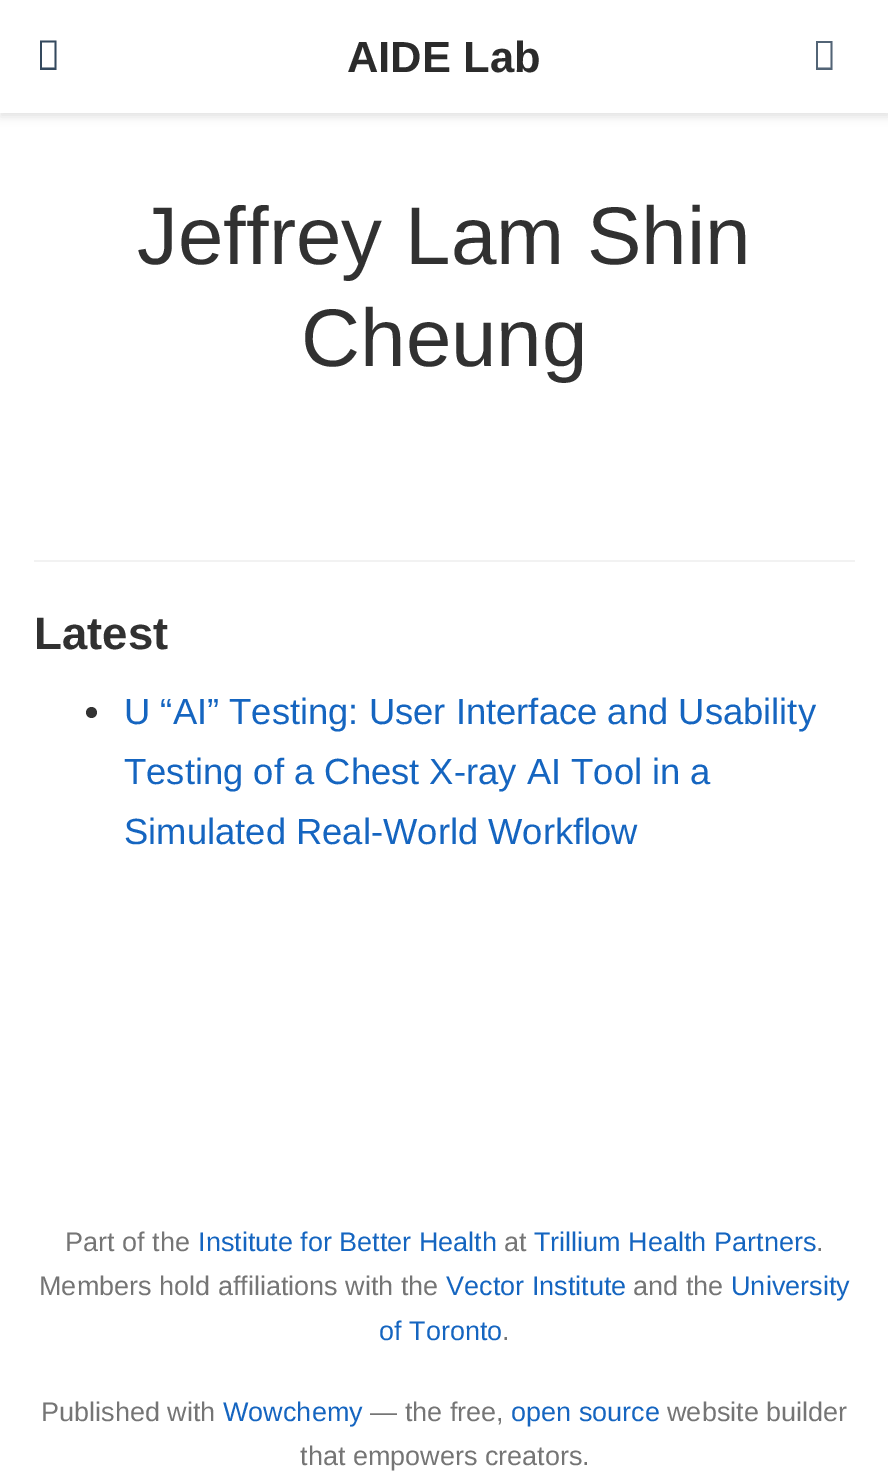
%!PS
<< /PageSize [888 1479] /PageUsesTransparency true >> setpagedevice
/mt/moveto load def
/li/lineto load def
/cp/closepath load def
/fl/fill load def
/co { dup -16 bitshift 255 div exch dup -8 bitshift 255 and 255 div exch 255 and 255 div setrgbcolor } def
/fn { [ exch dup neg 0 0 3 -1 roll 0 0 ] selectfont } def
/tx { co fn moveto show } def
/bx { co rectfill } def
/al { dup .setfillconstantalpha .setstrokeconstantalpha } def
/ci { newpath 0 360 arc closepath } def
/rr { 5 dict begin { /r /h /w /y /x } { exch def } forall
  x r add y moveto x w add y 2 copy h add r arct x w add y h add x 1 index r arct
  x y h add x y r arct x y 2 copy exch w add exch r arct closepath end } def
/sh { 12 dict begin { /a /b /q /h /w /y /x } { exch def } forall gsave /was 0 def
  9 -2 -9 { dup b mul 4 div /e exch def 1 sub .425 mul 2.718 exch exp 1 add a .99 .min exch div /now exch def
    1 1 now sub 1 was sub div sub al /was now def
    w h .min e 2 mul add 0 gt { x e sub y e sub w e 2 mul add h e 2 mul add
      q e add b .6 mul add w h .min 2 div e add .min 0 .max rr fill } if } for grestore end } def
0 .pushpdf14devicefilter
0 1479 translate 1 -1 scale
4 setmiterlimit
0 0 888 1479 16#FFFFFF bx
16#000000 co
0 5 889 112 0 4.5 .11 sh
0 0 888 113 16#FFFFFF bx
16#34495E co
40 70 mt 40 40.5 li 56.5 40.5 li 56.5 70 li cp 42 67.5 mt 54.5 67.5 li 54.5 42.5 li 42 42.5 li cp fl
16#526476 co
816 70 mt 816 41 li 832.5 41 li 832.5 70 li cp 818 67.5 mt 830.5 67.5 li 830.5 43 li 818 43 li cp fl
34 560 821 2 16#F2F2F2 bx
16#333333 co
91.5 712.5 5.5 ci fl
(AIDE Lab) 347 72 /LiberationSans-Bold 43.5 16#2B2B2B tx
(Jeffrey Lam Shin) 137 264 /LiberationSans-Regular 81.75 16#313131 tx
(Cheung) 301 366 /LiberationSans-Regular 81.75 16#313131 tx
(Latest) 34 649 /LiberationSans-Bold 45.5 16#313131 tx
(U “AI” Testing: User Interface and Usability) 124 724 /LiberationSans-Regular 36.4 16#1565C0 tx
(Testing of a Chest X-ray AI Tool in a) 124 784 /LiberationSans-Regular 36.4 16#1565C0 tx
(Simulated Real-World Workflow) 124 844 /LiberationSans-Regular 36.4 16#1565C0 tx
(Part of the) 65 1251 /LiberationSans-Regular 27 16#757575 tx
(Institute for Better Health) 198 1251 /LiberationSans-Regular 27 16#1565C0 tx
(at) 504 1251 /LiberationSans-Regular 27 16#757575 tx
(Trillium Health Partners) 534 1251 /LiberationSans-Regular 27 16#1565C0 tx
(.) 816 1251 /LiberationSans-Regular 27 16#757575 tx
(Members hold affiliations with the) 39 1295 /LiberationSans-Regular 27 16#757575 tx
(Vector Institute) 446 1295 /LiberationSans-Regular 27 16#1565C0 tx
(and the) 633 1295 /LiberationSans-Regular 27 16#757575 tx
(University) 731 1295 /LiberationSans-Regular 27 16#1565C0 tx
(of Toronto) 379 1340 /LiberationSans-Regular 27 16#1565C0 tx
(.) 502 1340 /LiberationSans-Regular 27 16#757575 tx
(Published with) 41 1421 /LiberationSans-Regular 27 16#757575 tx
(Wowchemy) 223 1421 /LiberationSans-Regular 27 16#1565C0 tx
(— the free,) 370 1421 /LiberationSans-Regular 27 16#757575 tx
(open source) 511 1421 /LiberationSans-Regular 27 16#1565C0 tx
(website builder) 667 1421 /LiberationSans-Regular 27 16#757575 tx
(that empowers creators.) 300 1465 /LiberationSans-Regular 27 16#757575 tx
.poppdf14devicefilter showpage
